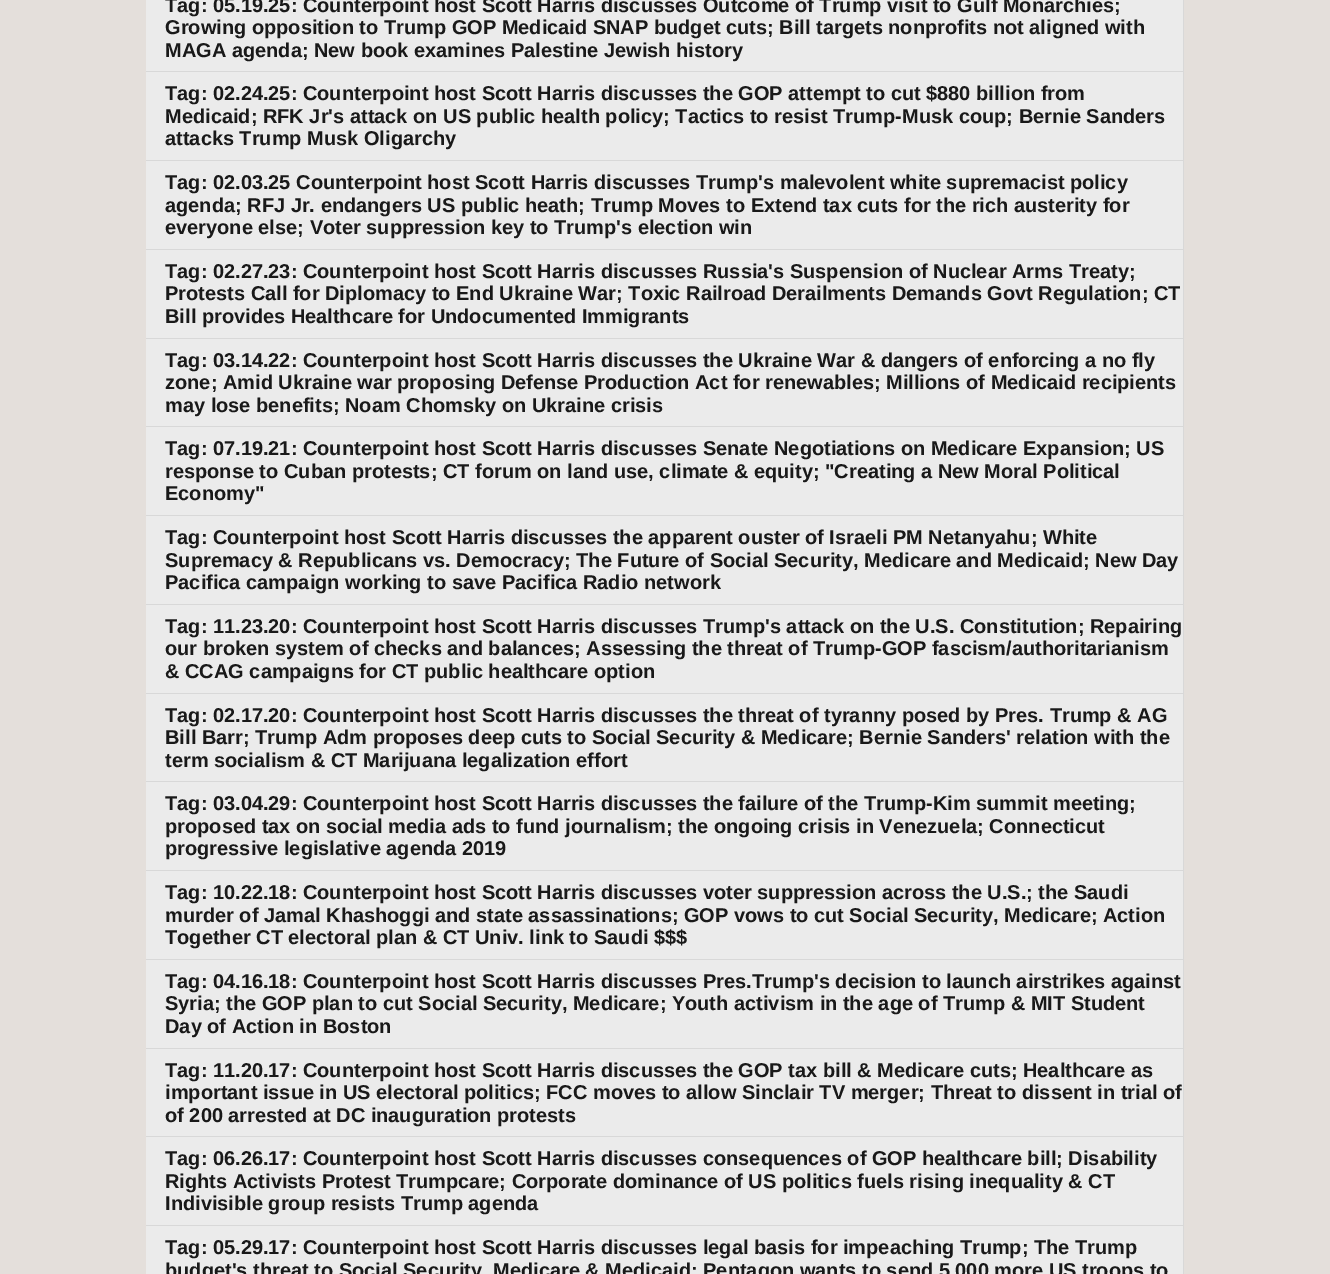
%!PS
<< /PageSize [1330 1274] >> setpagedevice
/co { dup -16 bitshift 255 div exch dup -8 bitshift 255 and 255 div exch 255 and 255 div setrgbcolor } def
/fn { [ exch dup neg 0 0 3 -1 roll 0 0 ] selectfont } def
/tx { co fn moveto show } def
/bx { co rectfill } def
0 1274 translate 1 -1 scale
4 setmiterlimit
0 0 1330 1274 16#E4DFDB bx
146 0 1037 160 16#EBEBEB bx
146 71 1038 1 16#D8D8D8 bx
146 160 1038 1 16#D8D8D8 bx
146 249 1038 1 16#D8D8D8 bx
146 338 1038 1 16#D8D8D8 bx
146 339 1037 176 16#EBEBEB bx
146 426 1038 1 16#D8D8D8 bx
146 515 1038 1 16#D8D8D8 bx
146 604 1038 1 16#D8D8D8 bx
146 693 1038 1 16#D8D8D8 bx
146 694 1037 176 16#EBEBEB bx
146 781 1038 1 16#D8D8D8 bx
146 870 1038 1 16#D8D8D8 bx
146 959 1038 1 16#D8D8D8 bx
146 1048 1038 1 16#D8D8D8 bx
146 1049 1037 176 16#EBEBEB bx
146 1136 1038 1 16#D8D8D8 bx
146 1225 1038 1 16#D8D8D8 bx
1183 1225 1 49 16#D8D8D8 bx
1183 1136 1 90 16#D8D8D8 bx
1183 1048 1 90 16#D8D8D8 bx
1183 959 1 90 16#D8D8D8 bx
1183 870 1 90 16#D8D8D8 bx
1183 781 1 90 16#D8D8D8 bx
1183 693 1 90 16#D8D8D8 bx
1183 604 1 90 16#D8D8D8 bx
1183 515 1 90 16#D8D8D8 bx
1183 426 1 90 16#D8D8D8 bx
1183 338 1 90 16#D8D8D8 bx
1183 249 1 90 16#D8D8D8 bx
1183 160 1 90 16#D8D8D8 bx
1183 0 1 161 16#D8D8D8 bx
146 161 1037 88 16#EBEBEB bx
146 250 1037 88 16#EBEBEB bx
146 516 1037 88 16#EBEBEB bx
146 605 1037 88 16#EBEBEB bx
146 871 1037 88 16#EBEBEB bx
146 960 1037 88 16#EBEBEB bx
146 1226 1037 48 16#EBEBEB bx
(Tag: 05.19.25: Counterpoint host Scott Harris discusses Outcome of Trump visit to Gulf Monarchies;) 165 12 /LiberationSans-Bold 20 16#191919 tx
(Growing opposition to Trump GOP Medicaid SNAP budget cuts; Bill targets nonprofits not aligned with) 165 34 /LiberationSans-Bold 20 16#191919 tx
(MAGA agenda; New book examines Palestine Jewish history) 165 57 /LiberationSans-Bold 20 16#191919 tx
(Tag: 02.24.25: Counterpoint host Scott Harris discusses the GOP attempt to cut $880 billion from) 165 100 /LiberationSans-Bold 20 16#191919 tx
(Medicaid; RFK Jr's attack on US public health policy; Tactics to resist Trump-Musk coup; Bernie Sanders) 165 123 /LiberationSans-Bold 20 16#191919 tx
(attacks Trump Musk Oligarchy) 165 145 /LiberationSans-Bold 20 16#191919 tx
(Tag: 02.03.25 Counterpoint host Scott Harris discusses Trump's malevolent white supremacist policy) 165 189 /LiberationSans-Bold 20 16#191919 tx
(agenda; RFJ Jr. endangers US public heath; Trump Moves to Extend tax cuts for the rich austerity for) 165 212 /LiberationSans-Bold 20 16#191919 tx
(everyone else; Voter suppression key to Trump's election win) 165 234 /LiberationSans-Bold 20 16#191919 tx
(Tag: 02.27.23: Counterpoint host Scott Harris discusses Russia's Suspension of Nuclear Arms Treaty;) 165 278 /LiberationSans-Bold 20 16#191919 tx
(Protests Call for Diplomacy to End Ukraine War; Toxic Railroad Derailments Demands Govt Regulation; CT) 165 300 /LiberationSans-Bold 20 16#191919 tx
(Bill provides Healthcare for Undocumented Immigrants) 165 323 /LiberationSans-Bold 20 16#191919 tx
(Tag: 03.14.22: Counterpoint host Scott Harris discusses the Ukraine War & dangers of enforcing a no fly) 165 367 /LiberationSans-Bold 20 16#191919 tx
(zone; Amid Ukraine war proposing Defense Production Act for renewables; Millions of Medicaid recipients) 165 389 /LiberationSans-Bold 20 16#191919 tx
(may lose benefits; Noam Chomsky on Ukraine crisis) 165 412 /LiberationSans-Bold 20 16#191919 tx
(Tag: 07.19.21: Counterpoint host Scott Harris discusses Senate Negotiations on Medicare Expansion; US) 165 455 /LiberationSans-Bold 20 16#191919 tx
(response to Cuban protests; CT forum on land use, climate & equity; "Creating a New Moral Political) 165 478 /LiberationSans-Bold 20 16#191919 tx
(Economy") 165 500 /LiberationSans-Bold 20 16#191919 tx
(Tag: Counterpoint host Scott Harris discusses the apparent ouster of Israeli PM Netanyahu; White) 165 544 /LiberationSans-Bold 20 16#191919 tx
(Supremacy & Republicans vs. Democracy; The Future of Social Security, Medicare and Medicaid; New Day) 165 567 /LiberationSans-Bold 20 16#191919 tx
(Pacifica campaign working to save Pacifica Radio network) 165 589 /LiberationSans-Bold 20 16#191919 tx
(Tag: 11.23.20: Counterpoint host Scott Harris discusses Trump's attack on the U.S. Constitution; Repairing) 165 633 /LiberationSans-Bold 20 16#191919 tx
(our broken system of checks and balances; Assessing the threat of Trump-GOP fascism/authoritarianism) 165 655 /LiberationSans-Bold 20 16#191919 tx
(& CCAG campaigns for CT public healthcare option) 165 678 /LiberationSans-Bold 20 16#191919 tx
(Tag: 02.17.20: Counterpoint host Scott Harris discusses the threat of tyranny posed by Pres. Trump & AG) 165 722 /LiberationSans-Bold 20 16#191919 tx
(Bill Barr; Trump Adm proposes deep cuts to Social Security & Medicare; Bernie Sanders' relation with the) 165 744 /LiberationSans-Bold 20 16#191919 tx
(term socialism & CT Marijuana legalization effort) 165 767 /LiberationSans-Bold 20 16#191919 tx
(Tag: 03.04.29: Counterpoint host Scott Harris discusses the failure of the Trump-Kim summit meeting;) 165 810 /LiberationSans-Bold 20 16#191919 tx
(proposed tax on social media ads to fund journalism; the ongoing crisis in Venezuela; Connecticut) 165 833 /LiberationSans-Bold 20 16#191919 tx
(progressive legislative agenda 2019) 165 855 /LiberationSans-Bold 20 16#191919 tx
(Tag: 10.22.18: Counterpoint host Scott Harris discusses voter suppression across the U.S.; the Saudi) 165 899 /LiberationSans-Bold 20 16#191919 tx
(murder of Jamal Khashoggi and state assassinations; GOP vows to cut Social Security, Medicare; Action) 165 922 /LiberationSans-Bold 20 16#191919 tx
(Together CT electoral plan & CT Univ. link to Saudi $$$) 165 944 /LiberationSans-Bold 20 16#191919 tx
(Tag: 04.16.18: Counterpoint host Scott Harris discusses Pres.Trump's decision to launch airstrikes against) 165 988 /LiberationSans-Bold 20 16#191919 tx
(Syria; the GOP plan to cut Social Security, Medicare; Youth activism in the age of Trump & MIT Student) 165 1010 /LiberationSans-Bold 20 16#191919 tx
(Day of Action in Boston) 165 1033 /LiberationSans-Bold 20 16#191919 tx
(Tag: 11.20.17: Counterpoint host Scott Harris discusses the GOP tax bill & Medicare cuts; Healthcare as) 165 1077 /LiberationSans-Bold 20 16#191919 tx
(important issue in US electoral politics; FCC moves to allow Sinclair TV merger; Threat to dissent in trial of) 165 1099 /LiberationSans-Bold 20 16#191919 tx
(of 200 arrested at DC inauguration protests) 165 1122 /LiberationSans-Bold 20 16#191919 tx
(Tag: 06.26.17: Counterpoint host Scott Harris discusses consequences of GOP healthcare bill; Disability) 165 1165 /LiberationSans-Bold 20 16#191919 tx
(Rights Activists Protest Trumpcare; Corporate dominance of US politics fuels rising inequality & CT) 165 1188 /LiberationSans-Bold 20 16#191919 tx
(Indivisible group resists Trump agenda) 165 1210 /LiberationSans-Bold 20 16#191919 tx
(Tag: 05.29.17: Counterpoint host Scott Harris discusses legal basis for impeaching Trump; The Trump) 165 1254 /LiberationSans-Bold 20 16#191919 tx
(budget's threat to Social Security, Medicare & Medicaid; Pentagon wants to send 5,000 more US troops to) 165 1277 /LiberationSans-Bold 20 16#191919 tx
showpage
